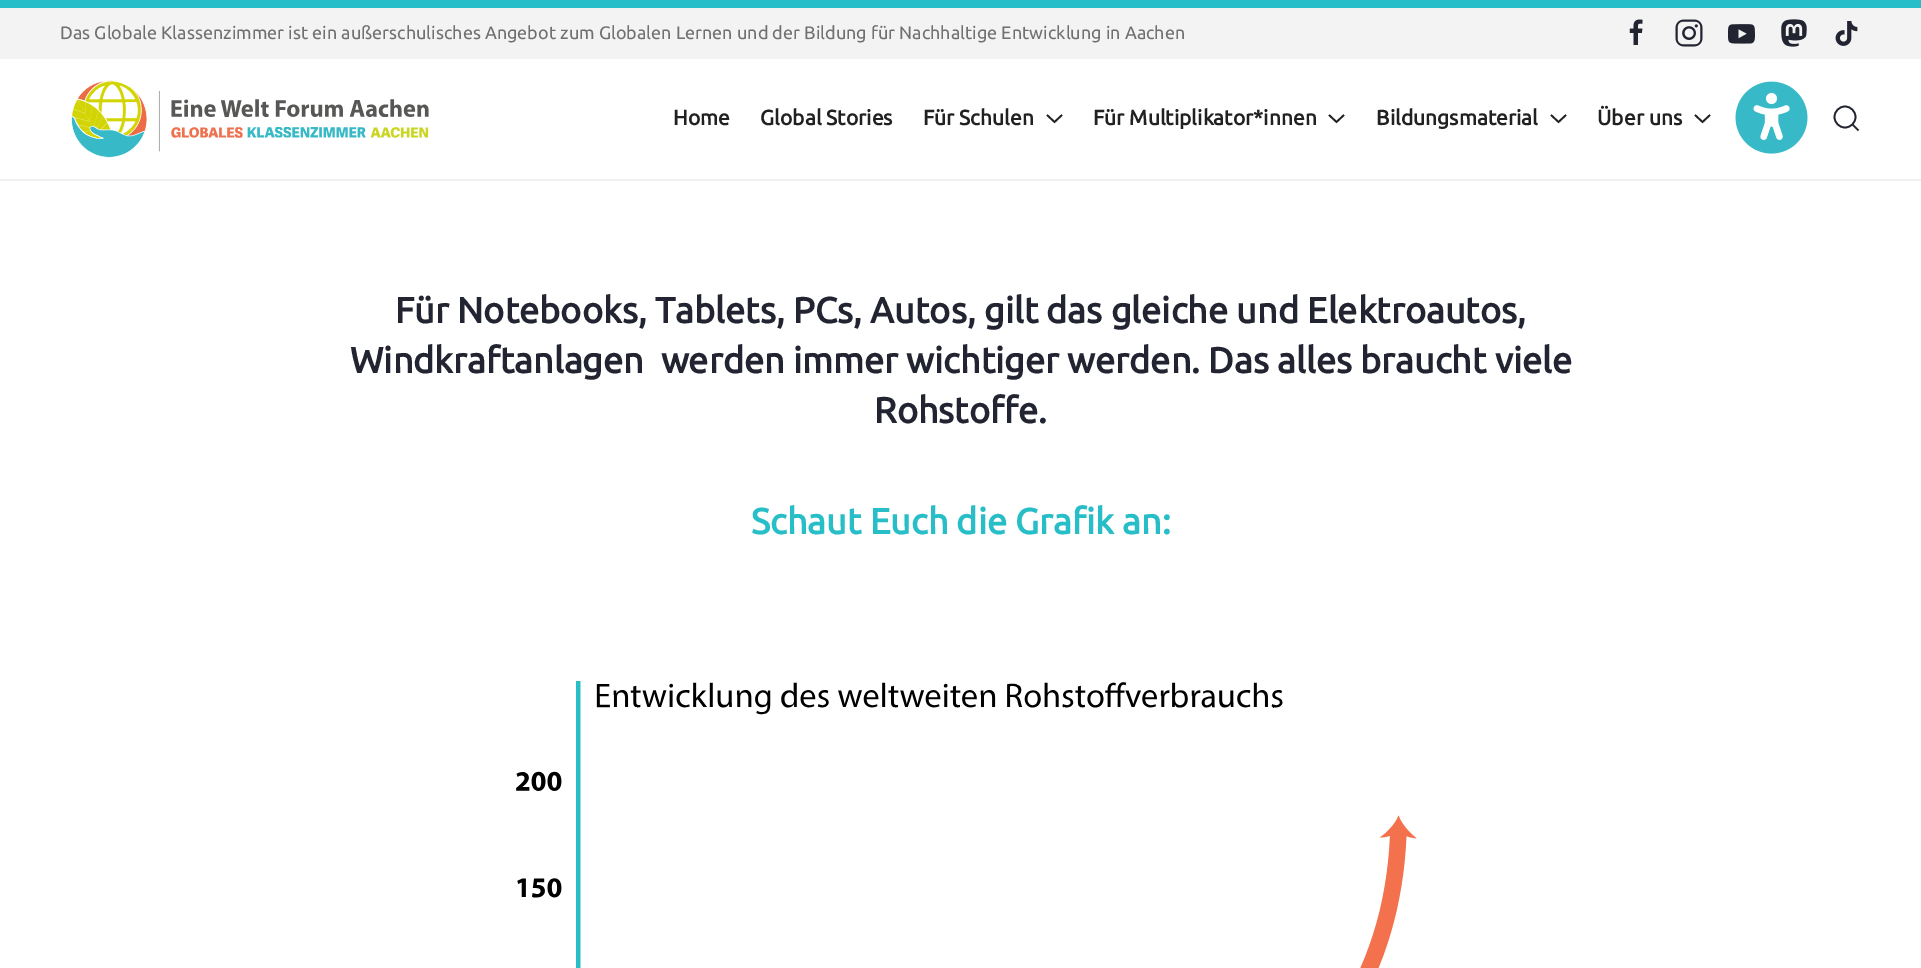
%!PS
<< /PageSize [1921 968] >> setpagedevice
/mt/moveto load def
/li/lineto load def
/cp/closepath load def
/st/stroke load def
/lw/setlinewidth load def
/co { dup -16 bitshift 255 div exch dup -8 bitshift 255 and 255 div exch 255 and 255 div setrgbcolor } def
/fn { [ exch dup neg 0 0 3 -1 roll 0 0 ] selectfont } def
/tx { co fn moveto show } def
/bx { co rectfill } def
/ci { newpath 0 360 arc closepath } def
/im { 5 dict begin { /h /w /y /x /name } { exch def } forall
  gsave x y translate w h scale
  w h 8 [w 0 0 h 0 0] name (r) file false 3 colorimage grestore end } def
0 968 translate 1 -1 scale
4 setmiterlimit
0 0 1921 968 16#FFFFFF bx
0 8 1921 51 16#F3F3F3 bx
0 0 1921 8 16#28BEC9 bx
(media/1.raw) 1629 19 14 26 im
(media/2.raw) 1675 19 28 28 im
(media/3.raw) 1728 24 27 20 im
(media/4.raw) 1781 19 26 28 im
(media/5.raw) 1835 21 23 25 im
0 179 1921 2 16#F1F1F1 bx
(media/6.raw) 71 80 358 78 im
16#212121 co
1.7 lw
1047 115 mt 1054.5 122 li 1062 115 li st
1329 115 mt 1336.5 122 li 1344 115 li st
1551 115 mt 1558.5 122 li 1566 115 li st
1695 115 mt 1702.5 122 li 1710 115 li st
(media/7.raw) 1735 81 73 73 im
16#222531 co
1845 117 10.5 ci st
1852.5 124.5 mt 1858.5 130.5 li cp st
(media/8.raw) 516 681 901 287 im
(Das Globale Klassenzimmer ist ein außerschulisches Angebot zum Globalen Lernen und der Bildung für Nachhaltige Entwicklung in Aachen) 60 39 /Ubuntu-Regular 18 16#707070 tx
(Home) 673 125 /Ubuntu-Bold 21 16#212121 tx
(Global Stories) 760 125 /Ubuntu-Bold 21 16#212121 tx
(Für Schulen) 923 125 /Ubuntu-Bold 21 16#212121 tx
(Für Multiplikator*innen) 1093 125 /Ubuntu-Bold 21 16#212121 tx
(Bildungsmaterial) 1376 125 /Ubuntu-Bold 21 16#212121 tx
(Über uns) 1597 125 /Ubuntu-Bold 21 16#212121 tx
(Für Notebooks, Tablets, PCs, Autos, gilt das gleiche und Elektroautos,) 395 323 /Ubuntu-Bold 36 16#222531 tx
(Windkraftanlagen  werden immer wichtiger werden. Das alles braucht viele) 350 373 /Ubuntu-Bold 36 16#222531 tx
(Rohstoffe.) 874 423 /Ubuntu-Bold 36 16#222531 tx
(Schaut Euch die Grafik an:) 751 534 /Ubuntu-Bold 36 16#28BEC8 tx
showpage
